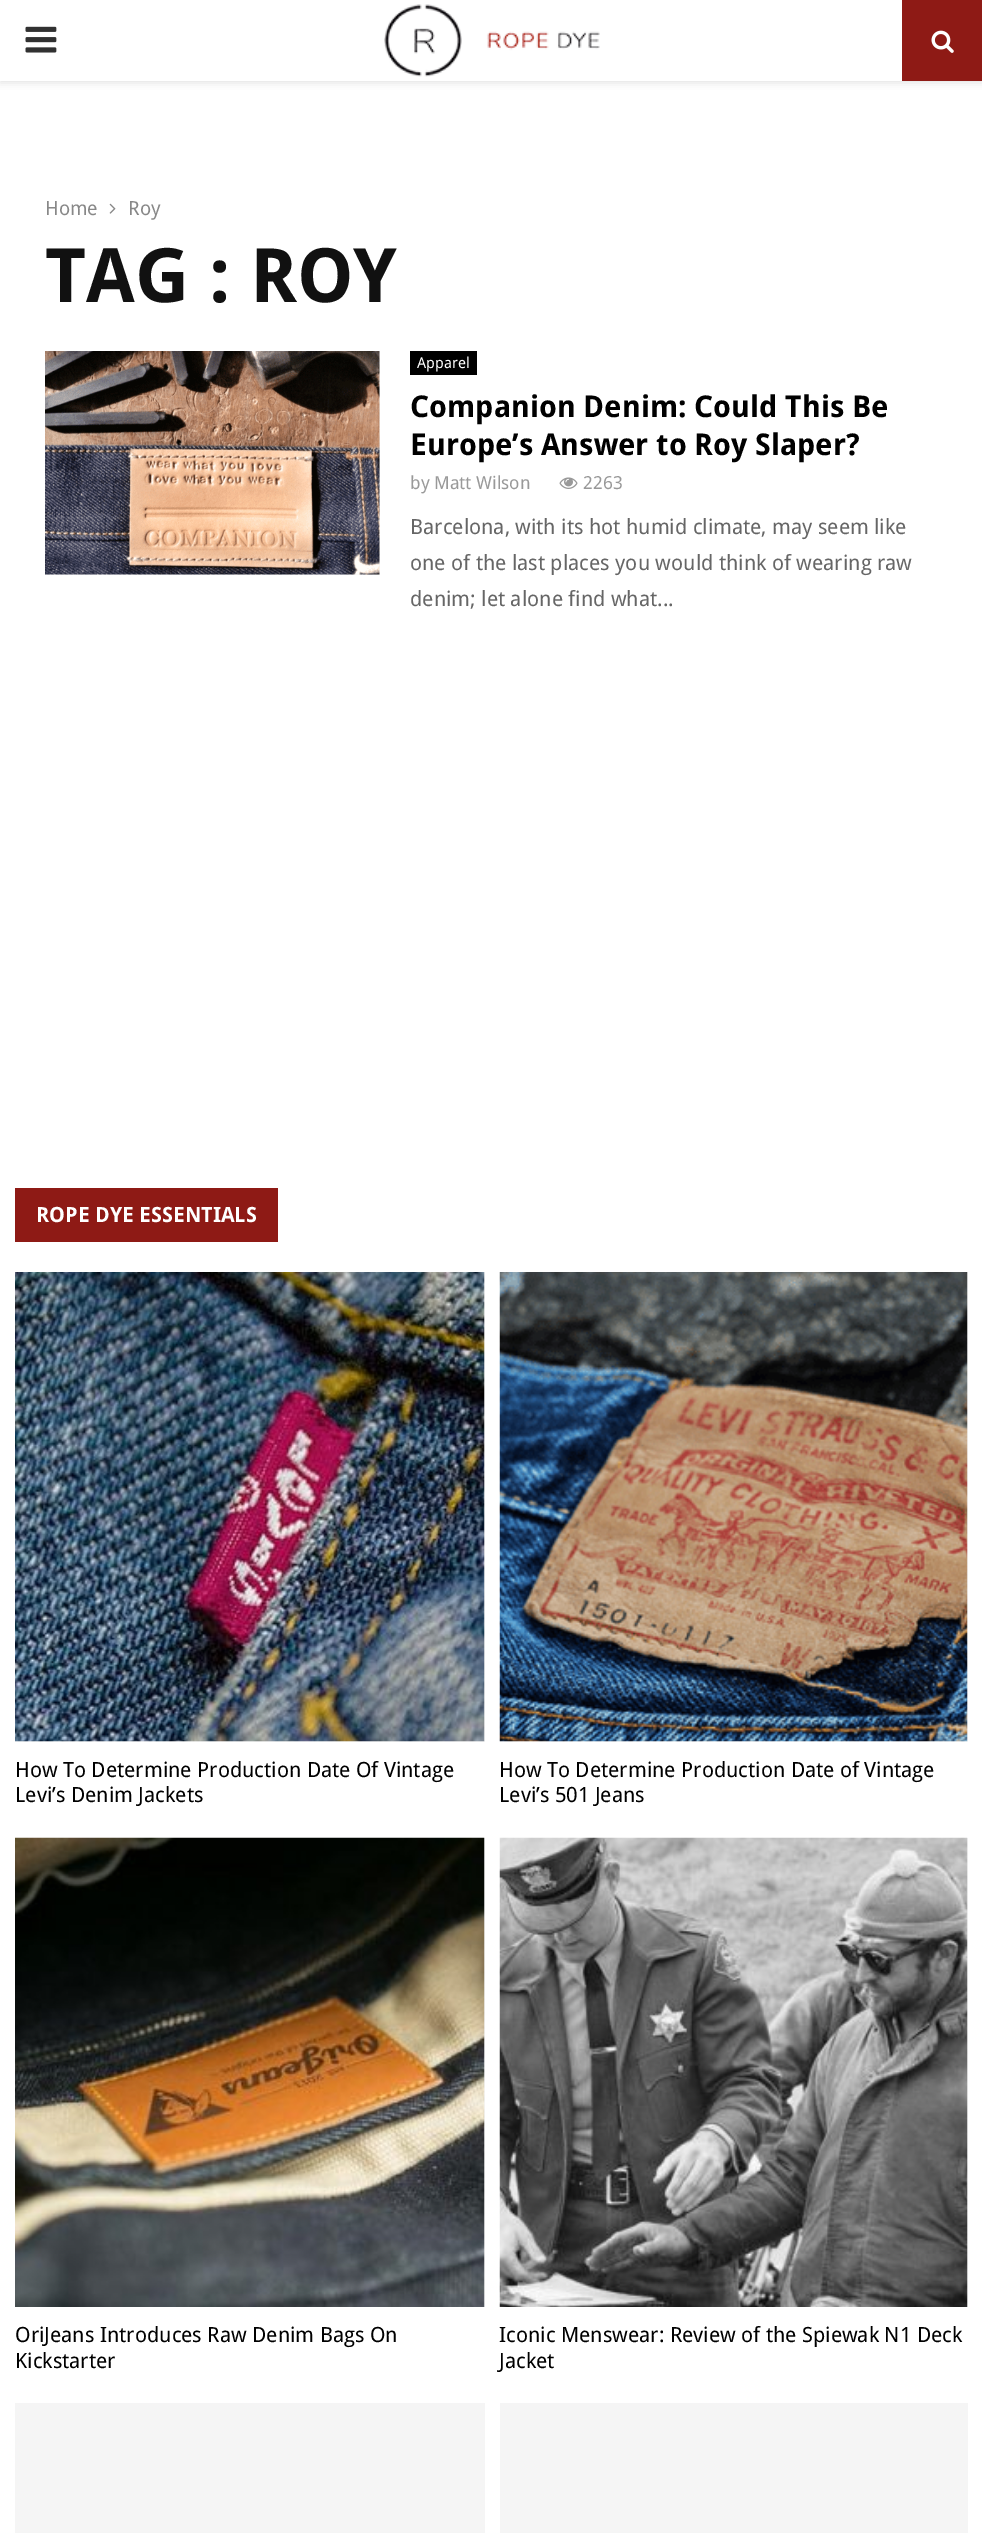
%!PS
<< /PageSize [982 2533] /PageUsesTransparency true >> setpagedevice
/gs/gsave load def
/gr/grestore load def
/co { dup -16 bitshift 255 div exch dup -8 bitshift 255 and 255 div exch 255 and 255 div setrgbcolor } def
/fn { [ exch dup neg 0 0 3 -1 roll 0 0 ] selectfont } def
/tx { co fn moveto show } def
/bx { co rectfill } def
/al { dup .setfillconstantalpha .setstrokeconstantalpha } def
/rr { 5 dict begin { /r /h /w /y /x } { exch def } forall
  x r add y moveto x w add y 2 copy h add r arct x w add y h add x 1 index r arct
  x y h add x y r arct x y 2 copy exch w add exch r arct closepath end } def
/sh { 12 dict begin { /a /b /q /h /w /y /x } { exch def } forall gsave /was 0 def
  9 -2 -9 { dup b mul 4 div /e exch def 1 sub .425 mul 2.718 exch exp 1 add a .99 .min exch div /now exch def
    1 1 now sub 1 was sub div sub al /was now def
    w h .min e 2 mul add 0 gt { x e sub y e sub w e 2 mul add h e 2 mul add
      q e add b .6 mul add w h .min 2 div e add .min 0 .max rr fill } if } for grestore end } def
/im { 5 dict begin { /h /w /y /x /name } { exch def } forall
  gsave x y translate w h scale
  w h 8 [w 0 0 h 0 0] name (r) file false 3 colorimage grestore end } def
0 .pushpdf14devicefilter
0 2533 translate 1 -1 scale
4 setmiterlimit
0 0 982 2533 16#FFFFFF bx
gs
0 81 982 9 rectclip
16#BEBEBE co
0 2 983 81 0 4 .46 sh
gr
(media/1.raw) 25 26 32 27 im
(media/2.raw) 384 4 216 73 im
902 0 80 81 16#8E1A15 bx
(media/3.raw) 931 30 23 23 im
(media/4.raw) 109 203 7 11 im
45 351 335 224 16#F5F5F5 bx
(media/5.raw) 45 351 335 224 im
410 351 67 24 16#000000 bx
(media/6.raw) 559 477 19 12 im
15 1188 263 54 16#8E1A15 bx
15 1272 470 470 16#F5F5F5 bx
(media/7.raw) 15 1272 470 470 im
500 1272 468 470 16#F5F5F5 bx
(media/8.raw) 499 1272 469 470 im
484 1838 1 469 16#F5F5F5 bx
(media/9.raw) 15 1837 470 470 im
967 1838 1 469 16#F5F5F5 bx
(media/10.raw) 499 1837 469 470 im
15 2403 470 130 16#F5F5F5 bx
500 2403 468 130 16#F5F5F5 bx
(Home) 45 215 /DroidSans-Regular 19.5 16#888888 tx
(Roy) 128 215 /DroidSans-Regular 19.5 16#888888 tx
(TAG : ROY) 45 302 /DroidSans-Bold 75 16#111111 tx
(Apparel) 417 368 /DroidSans-Regular 15 16#FFFFFF tx
(Companion Denim: Could This Be) 410 417 /DroidSans-Bold 30 16#000000 tx
(Europe’s Answer to Roy Slaper?) 410 455 /DroidSans-Bold 30 16#000000 tx
(by Matt Wilson) 410 489 /DroidSans-Regular 18 16#999999 tx
(2263) 583 489 /DroidSans-Regular 18 16#999999 tx
(Barcelona, with its hot humid climate, may seem like) 410 534 /DroidSans-Regular 21 16#666666 tx
(one of the last places you would think of wearing raw) 410 570 /DroidSans-Regular 21 16#666666 tx
(denim; let alone find what...) 410 606 /DroidSans-Regular 21 16#666666 tx
(ROPE DYE ESSENTIALS) 36 1222 /DroidSans-Bold 21 16#FFFFFF tx
(How To Determine Production Date Of Vintage) 15 1777 /DroidSans-Regular 21 16#000000 tx
(Levi’s Denim Jackets) 15 1802 /DroidSans-Regular 21 16#000000 tx
(How To Determine Production Date of Vintage) 499 1777 /DroidSans-Regular 21 16#000000 tx
(Levi’s 501 Jeans) 499 1802 /DroidSans-Regular 21 16#000000 tx
(OriJeans Introduces Raw Denim Bags On) 15 2342 /DroidSans-Regular 21 16#000000 tx
(Kickstarter) 15 2368 /DroidSans-Regular 21 16#000000 tx
(Iconic Menswear: Review of the Spiewak N1 Deck) 499 2342 /DroidSans-Regular 21 16#000000 tx
(Jacket) 499 2368 /DroidSans-Regular 21 16#000000 tx
.poppdf14devicefilter showpage
